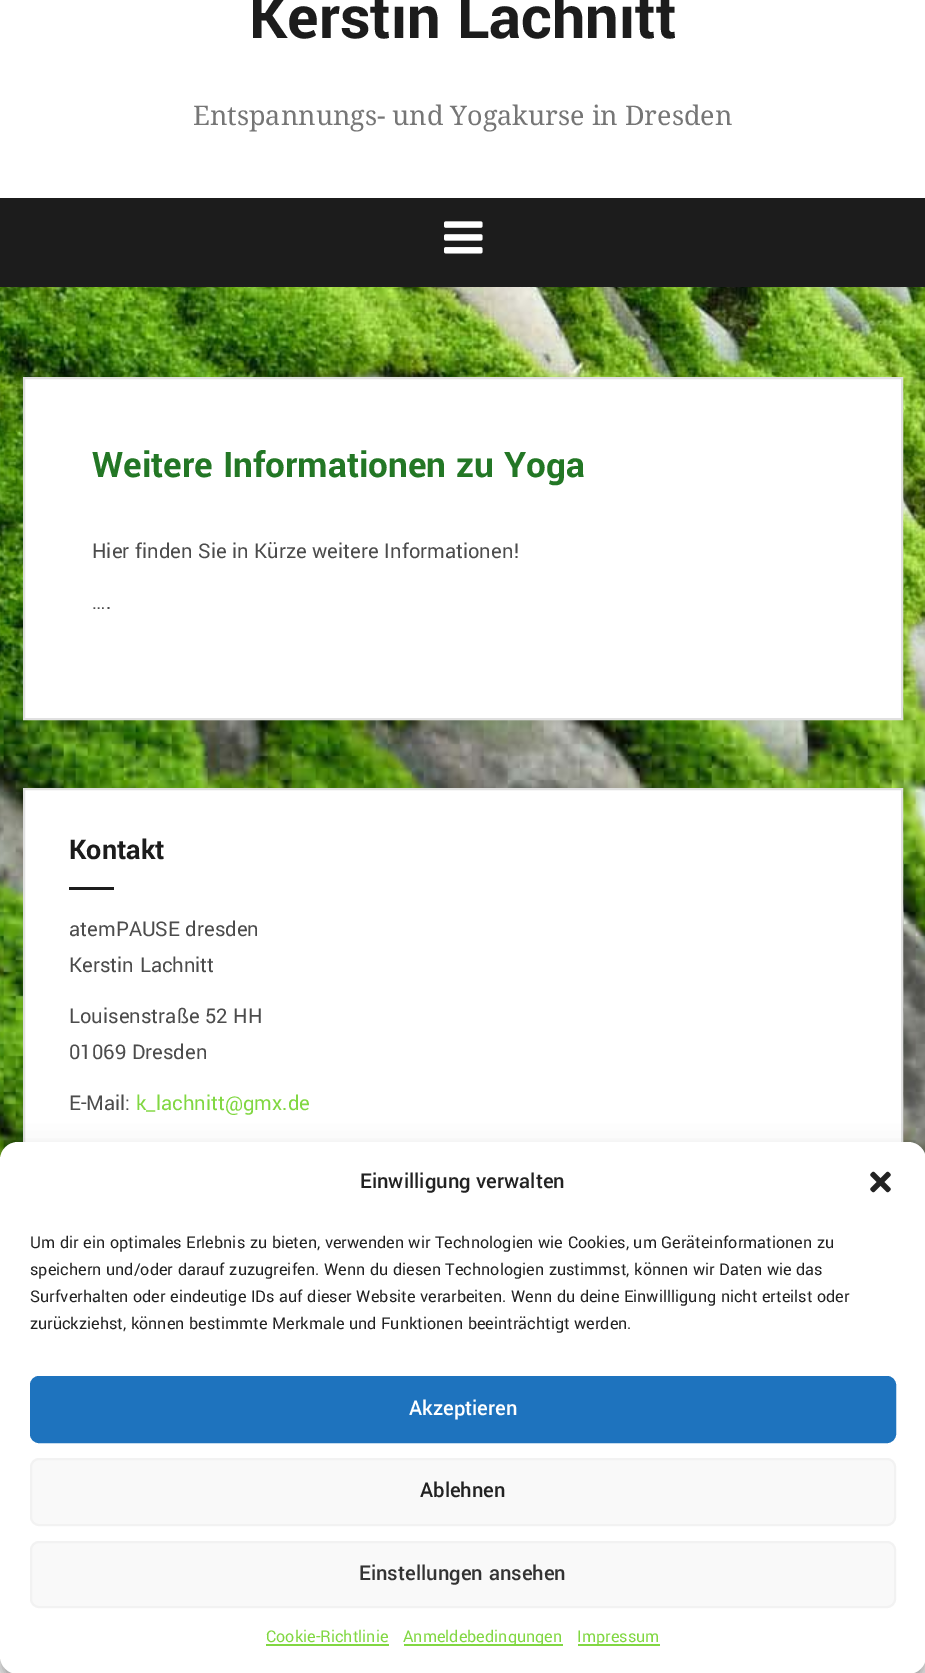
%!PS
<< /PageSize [925 1673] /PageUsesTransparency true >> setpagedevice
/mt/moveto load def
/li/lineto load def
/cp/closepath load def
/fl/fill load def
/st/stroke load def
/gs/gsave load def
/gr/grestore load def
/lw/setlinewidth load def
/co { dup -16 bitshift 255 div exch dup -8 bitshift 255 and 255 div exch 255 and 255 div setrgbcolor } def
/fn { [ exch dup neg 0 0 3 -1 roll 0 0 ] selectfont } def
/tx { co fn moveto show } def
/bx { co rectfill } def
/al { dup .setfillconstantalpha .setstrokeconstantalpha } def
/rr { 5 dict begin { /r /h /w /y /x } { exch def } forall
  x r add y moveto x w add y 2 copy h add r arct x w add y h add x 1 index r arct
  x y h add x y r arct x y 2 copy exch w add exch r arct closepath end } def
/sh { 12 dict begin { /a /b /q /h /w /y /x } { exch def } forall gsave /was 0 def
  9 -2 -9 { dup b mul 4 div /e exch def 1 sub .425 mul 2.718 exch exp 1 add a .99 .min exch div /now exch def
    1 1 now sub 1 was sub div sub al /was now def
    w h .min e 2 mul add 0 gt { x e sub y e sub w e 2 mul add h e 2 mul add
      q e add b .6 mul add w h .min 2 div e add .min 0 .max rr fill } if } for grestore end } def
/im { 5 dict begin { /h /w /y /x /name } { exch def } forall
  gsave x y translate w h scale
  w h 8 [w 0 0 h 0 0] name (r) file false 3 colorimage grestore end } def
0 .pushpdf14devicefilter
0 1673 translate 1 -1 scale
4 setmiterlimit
0 0 925 1673 16#FFFFFF bx
(media/1.raw) 0 287 925 873 im
0 198 925 89 16#1C1C1C bx
(media/2.raw) 444 221 39 33 im
16#FFFFFF co
24 378 mt 902 378 li 902 719 li 24 719 li cp gs fl gr
16#E0E0E0 co
2 lw
st
25 790 876 352 16#FFFFFF bx
16#E0E0E0 co
24 789 878 445 rectstroke
69 887 45 3 16#1C1C1C bx
16#000000 co
0 1151 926 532 18 4.5 .23 sh
0 1157 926 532 18 15 .19 sh
16#FFFFFF co
0 1142 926 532 18 rr fl
(media/3.raw) 870 1171 21 22 im
16#1E73BE co
31 1377 864 65 8 rr gs fl gr
st
16#F9F9F9 co
31 1459 864 66 8 rr gs fl gr
16#F2F2F2 co
st
16#F9F9F9 co
31 1542 864 65 8 rr gs fl gr
16#F2F2F2 co
st
266 1644 123 2 16#81D742 bx
404 1644 159 2 16#81D742 bx
578 1644 82 2 16#81D742 bx
(Kerstin Lachnitt) 249 38 /Yantramanav-Bold 66 16#1C1C1C tx
(Entspannungs- und Yogakurse in Dresden) 193 125 /NotoSerif-Regular 27 16#767676 tx
(Weitere Informationen zu Yoga) 92 477 /Yantramanav-Bold 39 16#237725 tx
(Hier finden Sie in Kürze weitere Informationen!) 92 558 /Yantramanav-Regular 22.5 16#4C4C4C tx
(….) 92 609 /Yantramanav-Regular 22.5 16#4C4C4C tx
(Kontakt) 69 859 /Yantramanav-Bold 30 16#1C1C1C tx
(atemPAUSE dresden) 69 936 /Yantramanav-Regular 22.5 16#4C4C4C tx
(Kerstin Lachnitt) 69 972 /Yantramanav-Regular 22.5 16#4C4C4C tx
(Louisenstraße 52 HH) 69 1023 /Yantramanav-Regular 22.5 16#4C4C4C tx
(01069 Dresden) 69 1059 /Yantramanav-Regular 22.5 16#4C4C4C tx
(E-Mail:) 69 1110 /Yantramanav-Regular 22.5 16#4C4C4C tx
(k_lachnitt@gmx.de) 136 1110 /Yantramanav-Regular 22.5 16#81D742 tx
(Einwilligung verwalten) 360 1188 /Yantramanav-Medium 22.5 16#222222 tx
(Um dir ein optimales Erlebnis zu bieten, verwenden wir Technologien wie Cookies, um Geräteinformationen zu) 30 1248 /Yantramanav-Regular 18 16#222222 tx
(speichern und/oder darauf zuzugreifen. Wenn du diesen Technologien zustimmst, können wir Daten wie das) 30 1275 /Yantramanav-Regular 18 16#222222 tx
(Surfverhalten oder eindeutige IDs auf dieser Website verarbeiten. Wenn du deine Einwillligung nicht erteilst oder) 30 1302 /Yantramanav-Regular 18 16#222222 tx
(zurückziehst, können bestimmte Merkmale und Funktionen beeinträchtigt werden.) 30 1329 /Yantramanav-Regular 18 16#222222 tx
(Akzeptieren) 409 1415 /Yantramanav-Medium 22.5 16#FFFFFF tx
(Ablehnen) 420 1497 /Yantramanav-Medium 22.5 16#222222 tx
(Einstellungen ansehen) 359 1580 /Yantramanav-Medium 22.5 16#333333 tx
(Cookie-Richtlinie) 266 1642 /Yantramanav-Regular 18 16#81D742 tx
(Anmeldebedingungen) 403 1642 /Yantramanav-Regular 18 16#81D742 tx
(Impressum) 577 1642 /Yantramanav-Regular 18 16#81D742 tx
.poppdf14devicefilter showpage
